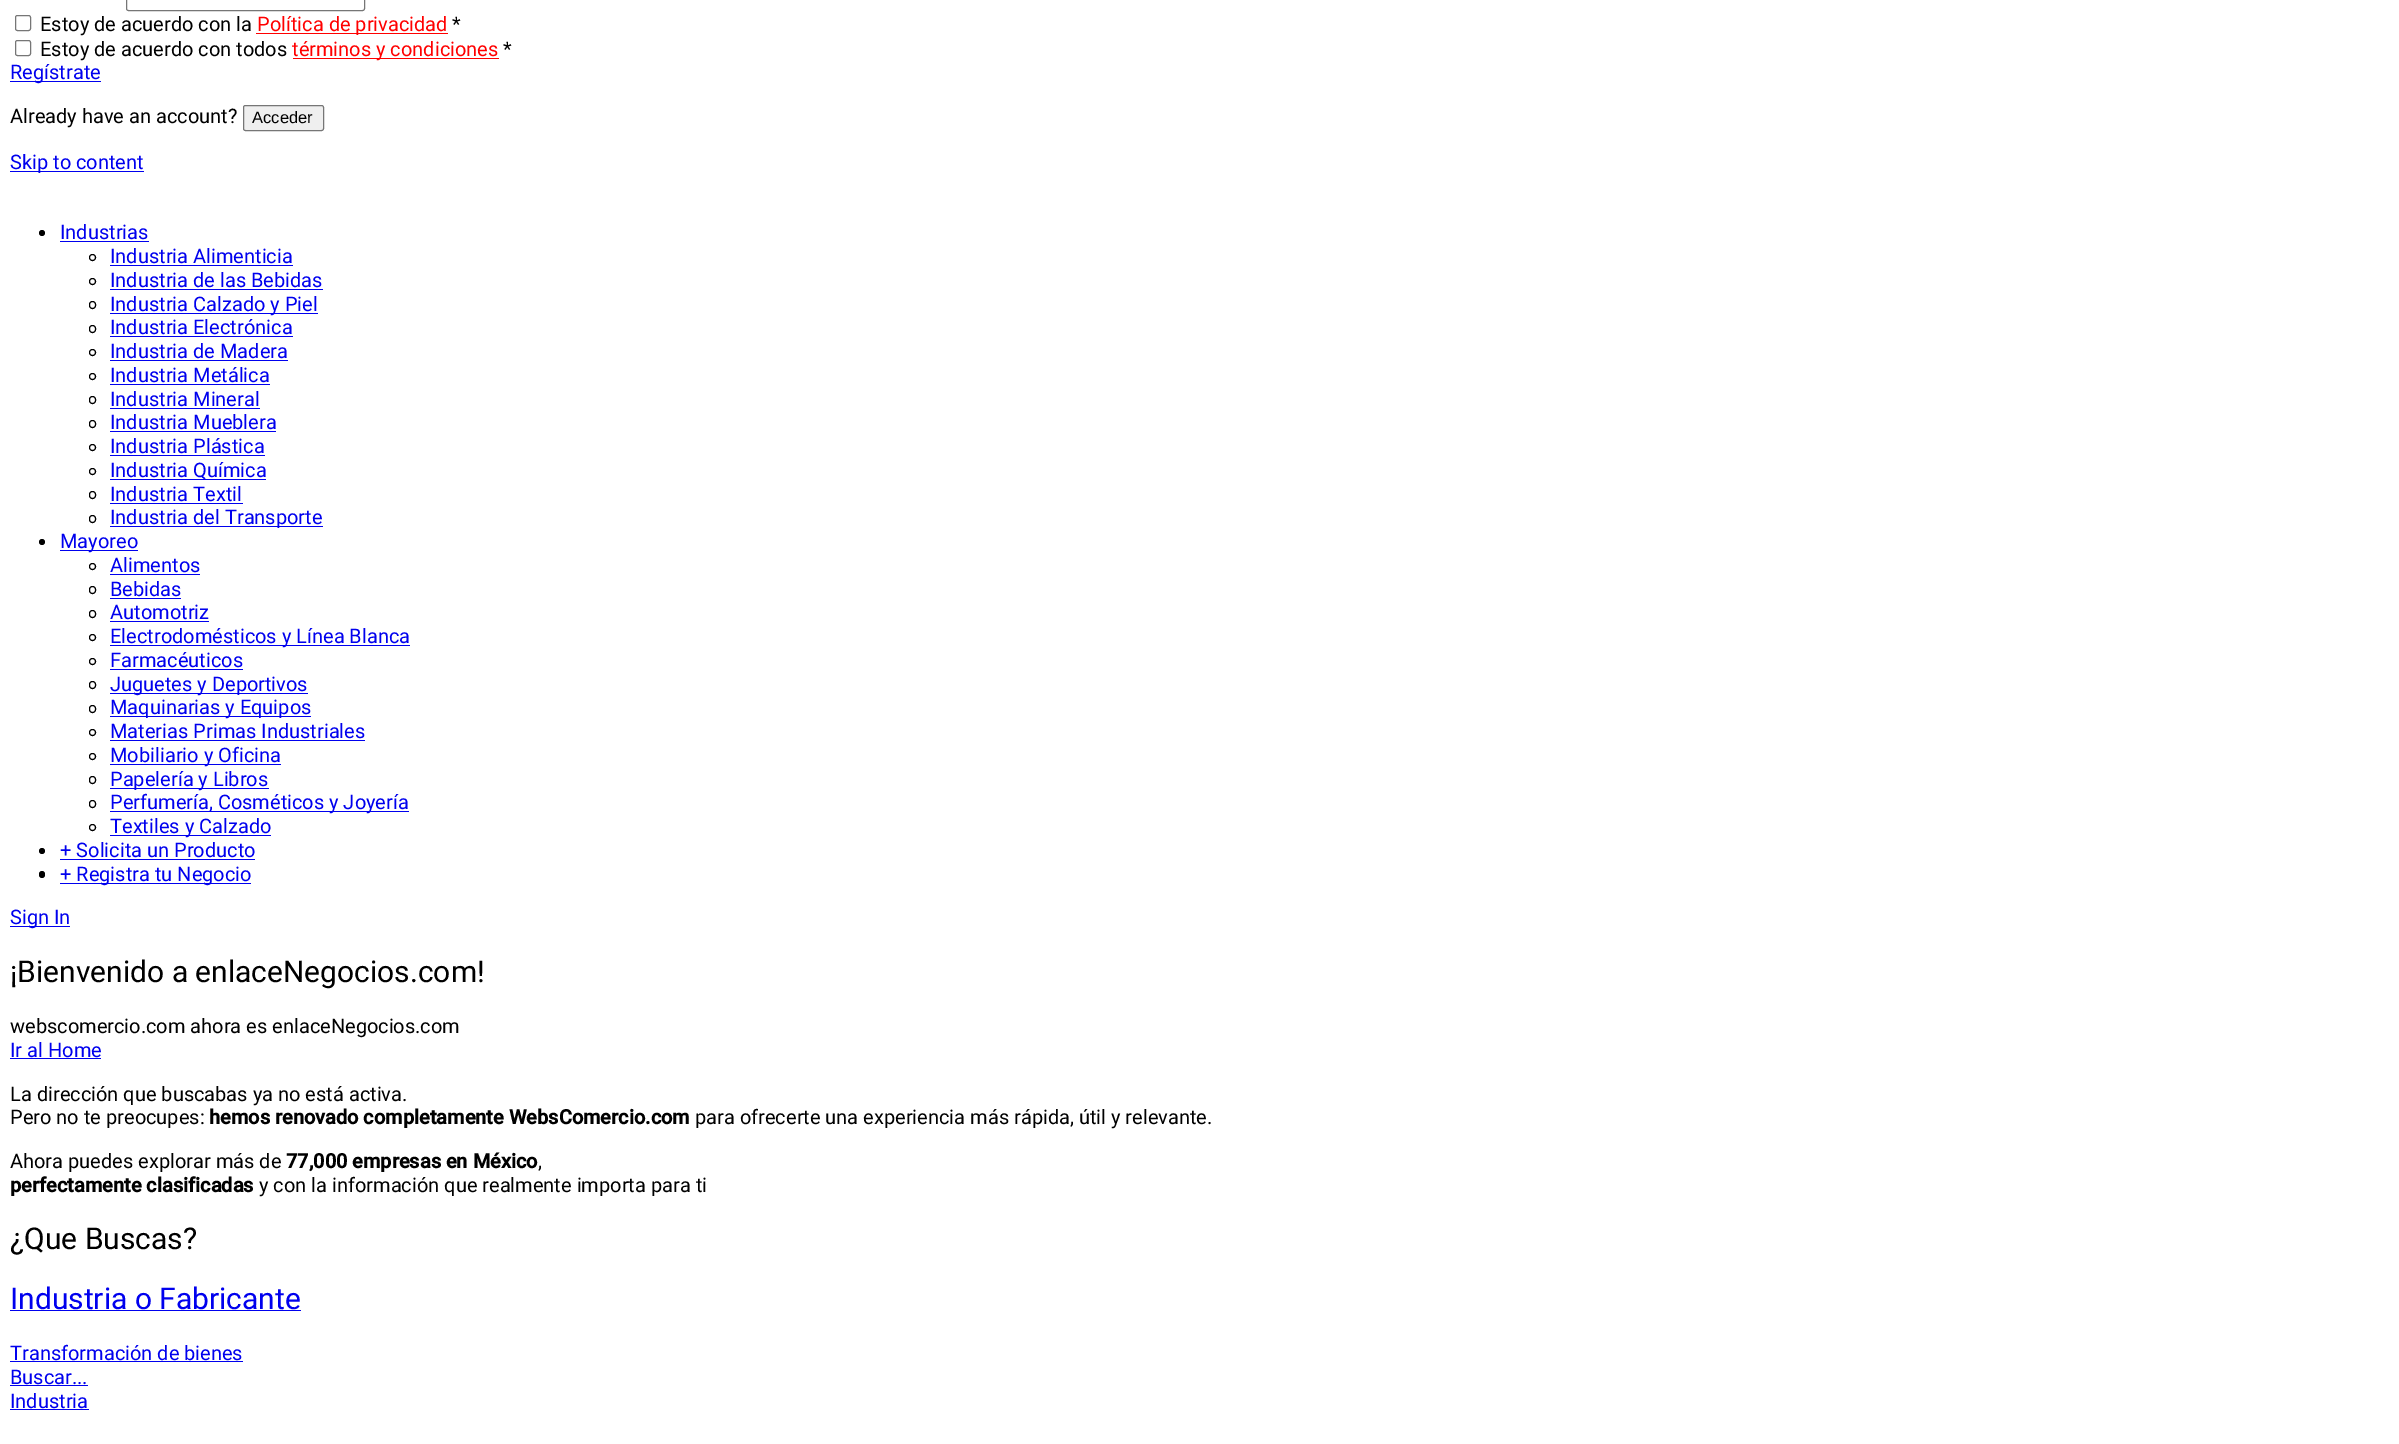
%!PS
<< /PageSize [2399 1444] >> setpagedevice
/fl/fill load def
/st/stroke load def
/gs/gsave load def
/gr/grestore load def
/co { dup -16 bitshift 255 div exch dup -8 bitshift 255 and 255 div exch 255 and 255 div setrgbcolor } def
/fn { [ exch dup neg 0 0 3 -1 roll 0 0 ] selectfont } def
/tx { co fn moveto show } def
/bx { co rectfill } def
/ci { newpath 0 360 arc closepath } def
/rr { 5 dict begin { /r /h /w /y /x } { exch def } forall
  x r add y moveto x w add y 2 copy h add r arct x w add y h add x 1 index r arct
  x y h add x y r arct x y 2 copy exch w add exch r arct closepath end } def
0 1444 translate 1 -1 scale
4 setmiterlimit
0 0 2399 1444 16#FFFFFF bx
16#767676 co
126.5 -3.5 238 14 2 rr st
15.5 15.5 15 15 2 rr st
256 33 192 1 16#FF0000 bx
16#767676 co
15.5 40.5 15 15 2 rr st
293 58 206 1 16#FF0000 bx
10 81 91 1 16#0000EE bx
16#EFEFEF co
243.5 105.5 80 25 2 rr gs fl gr
16#767676 co
st
10 171 134 1 16#0000EE bx
16#000000 co
42 233 3 ci fl
60 241 89 1 16#0000EE bx
16#000000 co
92.5 257.5 3 ci st
110 265 183 1 16#0000EE bx
16#000000 co
92.5 281.5 3 ci st
110 289 213 1 16#0000EE bx
16#000000 co
89.5 301.5 6 7 3 rr st
110 313 208 1 16#0000EE bx
16#000000 co
89.5 325.5 6 7 3 rr st
110 336 183 1 16#0000EE bx
16#000000 co
92.5 352.5 3 ci st
110 360 178 1 16#0000EE bx
16#000000 co
92.5 376.5 3 ci st
110 384 160 1 16#0000EE bx
16#000000 co
89.5 396.5 6 7 3 rr st
110 408 150 1 16#0000EE bx
16#000000 co
89.5 420.5 6 7 3 rr st
110 431 166 1 16#0000EE bx
16#000000 co
92.5 447.5 3 ci st
110 455 155 1 16#0000EE bx
16#000000 co
92.5 471.5 3 ci st
110 479 156 1 16#0000EE bx
16#000000 co
89.5 491.5 6 7 3 rr st
110 503 133 1 16#0000EE bx
16#000000 co
89.5 515.5 6 7 3 rr st
110 526 213 1 16#0000EE bx
16#000000 co
42 542 3 ci fl
60 550 78 1 16#0000EE bx
16#000000 co
92.5 566.5 3 ci st
110 574 90 1 16#0000EE bx
16#000000 co
89.5 586.5 6 7 3 rr st
110 598 71 1 16#0000EE bx
16#000000 co
89.5 610.5 6 7 3 rr st
110 621 99 1 16#0000EE bx
16#000000 co
92.5 637.5 3 ci st
110 645 300 1 16#0000EE bx
16#000000 co
92.5 661.5 3 ci st
110 669 133 1 16#0000EE bx
16#000000 co
89.5 681.5 6 7 3 rr st
110 693 198 1 16#0000EE bx
16#000000 co
89.5 705.5 6 7 3 rr st
110 716 201 1 16#0000EE bx
16#000000 co
92.5 732.5 3 ci st
110 740 255 1 16#0000EE bx
16#000000 co
92.5 756.5 3 ci st
110 764 171 1 16#0000EE bx
16#000000 co
89.5 776.5 6 7 3 rr st
110 788 159 1 16#0000EE bx
16#000000 co
89.5 800.5 6 7 3 rr st
110 811 299 1 16#0000EE bx
16#000000 co
92.5 827.5 3 ci st
110 835 161 1 16#0000EE bx
16#000000 co
42 851 3 ci fl
60 859 195 1 16#0000EE bx
16#000000 co
39 871 6 7 3 rr fl
60 883 191 1 16#0000EE bx
10 926 60 1 16#0000EE bx
10 1058 91 1 16#0000EE bx
10 1310 291 1 16#0000EE bx
10 1361 233 1 16#0000EE bx
10 1385 78 1 16#0000EE bx
10 1409 79 1 16#0000EE bx
(Estoy de acuerdo con la) 40 31 /Roboto-Regular 20 16#000000 tx
(Política de privacidad) 257 31 /Roboto-Regular 20 16#FF0000 tx
(*) 452 31 /Roboto-Regular 20 16#000000 tx
(Estoy de acuerdo con todos) 40 56 /Roboto-Regular 20 16#000000 tx
(términos y condiciones) 292 56 /Roboto-Regular 20 16#FF0000 tx
(*) 503 56 /Roboto-Regular 20 16#000000 tx
(Regístrate) 10 79 /Roboto-Regular 20 16#0000EE tx
(Already have an account?) 10 123 /Roboto-Regular 20 16#000000 tx
(Acceder) 252 123 /LiberationSans-Regular 16.5 16#000000 tx
(Skip to content) 10 169 /Roboto-Regular 20 16#0000EE tx
(Industrias) 60 239 /Roboto-Regular 20 16#0000EE tx
(Industria Alimenticia) 110 263 /Roboto-Regular 20 16#0000EE tx
(Industria de las Bebidas) 110 287 /Roboto-Regular 20 16#0000EE tx
(Industria Calzado y Piel) 110 311 /Roboto-Regular 20 16#0000EE tx
(Industria Electrónica) 110 334 /Roboto-Regular 20 16#0000EE tx
(Industria de Madera) 110 358 /Roboto-Regular 20 16#0000EE tx
(Industria Metálica) 110 382 /Roboto-Regular 20 16#0000EE tx
(Industria Mineral) 110 406 /Roboto-Regular 20 16#0000EE tx
(Industria Mueblera) 110 429 /Roboto-Regular 20 16#0000EE tx
(Industria Plástica) 110 453 /Roboto-Regular 20 16#0000EE tx
(Industria Química) 110 477 /Roboto-Regular 20 16#0000EE tx
(Industria Textil) 110 501 /Roboto-Regular 20 16#0000EE tx
(Industria del Transporte) 110 524 /Roboto-Regular 20 16#0000EE tx
(Mayoreo) 60 548 /Roboto-Regular 20 16#0000EE tx
(Alimentos) 110 572 /Roboto-Regular 20 16#0000EE tx
(Bebidas) 110 596 /Roboto-Regular 20 16#0000EE tx
(Automotriz) 110 619 /Roboto-Regular 20 16#0000EE tx
(Electrodomésticos y Línea Blanca) 110 643 /Roboto-Regular 20 16#0000EE tx
(Farmacéuticos) 110 667 /Roboto-Regular 20 16#0000EE tx
(Juguetes y Deportivos) 110 691 /Roboto-Regular 20 16#0000EE tx
(Maquinarias y Equipos) 110 714 /Roboto-Regular 20 16#0000EE tx
(Materias Primas Industriales) 110 738 /Roboto-Regular 20 16#0000EE tx
(Mobiliario y Oficina) 110 762 /Roboto-Regular 20 16#0000EE tx
(Papelería y Libros) 110 786 /Roboto-Regular 20 16#0000EE tx
(Perfumería, Cosméticos y Joyería) 110 809 /Roboto-Regular 20 16#0000EE tx
(Textiles y Calzado) 110 833 /Roboto-Regular 20 16#0000EE tx
(+ Solicita un Producto) 60 857 /Roboto-Regular 20 16#0000EE tx
(+ Registra tu Negocio) 60 881 /Roboto-Regular 20 16#0000EE tx
(Sign In) 10 924 /Roboto-Regular 20 16#0000EE tx
(¡Bienvenido a enlaceNegocios.com!) 10 982 /Roboto-Regular 30 16#000000 tx
(webscomercio.com ahora es enlaceNegocios.com) 10 1033 /Roboto-Regular 20 16#000000 tx
(Ir al Home) 10 1057 /Roboto-Regular 20 16#0000EE tx
(La dirección que buscabas ya no está activa.) 10 1101 /Roboto-Regular 20 16#000000 tx
(Pero no te preocupes:) 10 1124 /Roboto-Regular 20 16#000000 tx
(hemos renovado completamente WebsComercio.com) 209 1124 /Roboto-Bold 20 16#000000 tx
(para ofrecerte una experiencia más rápida, útil y relevante.) 695 1124 /Roboto-Regular 20 16#000000 tx
(Ahora puedes explorar más de) 10 1168 /Roboto-Regular 20 16#000000 tx
(77,000 empresas en México) 286 1168 /Roboto-Bold 20 16#000000 tx
(,) 538 1168 /Roboto-Regular 20 16#000000 tx
(perfectamente clasificadas) 10 1192 /Roboto-Bold 20 16#000000 tx
(y con la información que realmente importa para ti) 259 1192 /Roboto-Regular 20 16#000000 tx
(¿Que Buscas?) 10 1249 /Roboto-Regular 30 16#000000 tx
(Industria o Fabricante) 10 1309 /Roboto-Regular 30 16#0000EE tx
(Transformación de bienes) 10 1360 /Roboto-Regular 20 16#0000EE tx
(Buscar...) 10 1384 /Roboto-Regular 20 16#0000EE tx
(Industria) 10 1408 /Roboto-Regular 20 16#0000EE tx
showpage
